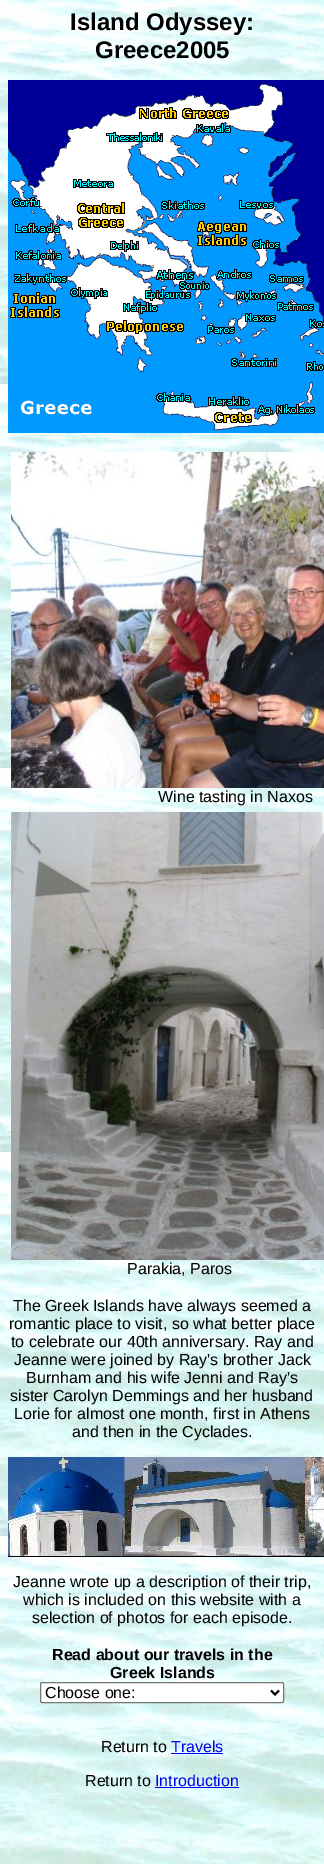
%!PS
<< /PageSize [324 1864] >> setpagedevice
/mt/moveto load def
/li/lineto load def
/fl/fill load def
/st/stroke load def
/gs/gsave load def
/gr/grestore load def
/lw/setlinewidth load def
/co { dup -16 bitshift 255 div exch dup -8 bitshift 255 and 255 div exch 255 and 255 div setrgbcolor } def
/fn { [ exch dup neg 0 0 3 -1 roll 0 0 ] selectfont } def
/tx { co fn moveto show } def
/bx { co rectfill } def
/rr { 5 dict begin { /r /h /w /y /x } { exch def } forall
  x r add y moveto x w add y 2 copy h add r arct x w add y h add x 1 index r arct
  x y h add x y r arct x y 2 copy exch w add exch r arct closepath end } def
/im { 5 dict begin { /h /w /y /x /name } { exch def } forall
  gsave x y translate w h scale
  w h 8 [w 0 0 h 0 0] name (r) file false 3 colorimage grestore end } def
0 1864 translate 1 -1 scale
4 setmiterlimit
0 0 324 1864 16#FFFFFF bx
(media/1.raw) 0 0 324 1864 im
(media/2.raw) 8 80 316 353 im
(media/3.raw) 11 452 313 336 im
(media/4.raw) 11 812 313 448 im
(media/5.raw) 8 1457 316 100 im
40.5 1682.5 243 20 1.5 rr gs fl gr
16#767676 co
st
16#000000 co
2 lw
271 1690.5 mt 275 1694.5 li 279 1690.5 li st
171 1753 52 1 16#0000EE bx
155 1787 84 1 16#0000EE bx
(Island Odyssey:) 70 30 /LiberationSans-Bold 24 16#000000 tx
(Greece2005) 95 58 /LiberationSans-Bold 24 16#000000 tx
(Wine tasting in Naxos) 158 802 /LiberationSans-Regular 16 16#000000 tx
(Parakia, Paros) 127 1274 /LiberationSans-Regular 16 16#000000 tx
(The Greek Islands have always seemed a) 13 1311 /LiberationSans-Regular 16 16#000000 tx
(romantic place to visit, so what better place) 9 1329 /LiberationSans-Regular 16 16#000000 tx
(to celebrate our 40th anniversary. Ray and) 11 1347 /LiberationSans-Regular 16 16#000000 tx
(Jeanne were joined by Ray's brother Jack) 14 1365 /LiberationSans-Regular 16 16#000000 tx
(Burnham and his wife Jenni and Ray's) 26 1383 /LiberationSans-Regular 16 16#000000 tx
(sister Carolyn Demmings and her husband) 10 1401 /LiberationSans-Regular 16 16#000000 tx
(Lorie for almost one month, first in Athens) 14 1419 /LiberationSans-Regular 16 16#000000 tx
(and then in the Cyclades.) 72 1437 /LiberationSans-Regular 16 16#000000 tx
(Jeanne wrote up a description of their trip,) 13 1587 /LiberationSans-Regular 16 16#000000 tx
(which is included on this website with a) 23 1605 /LiberationSans-Regular 16 16#000000 tx
(selection of photos for each episode.) 32 1623 /LiberationSans-Regular 16 16#000000 tx
(Read about our travels in the) 52 1660 /LiberationSans-Bold 16 16#000000 tx
(Greek Islands) 110 1678 /LiberationSans-Bold 16 16#000000 tx
(Choose one:) 45 1698 /LiberationSans-Regular 16 16#000000 tx
(Return to) 101 1752 /LiberationSans-Regular 16 16#000000 tx
(Travels) 171 1752 /LiberationSans-Regular 16 16#0000EE tx
(Return to) 85 1786 /LiberationSans-Regular 16 16#000000 tx
(Introduction) 155 1786 /LiberationSans-Regular 16 16#0000EE tx
showpage
